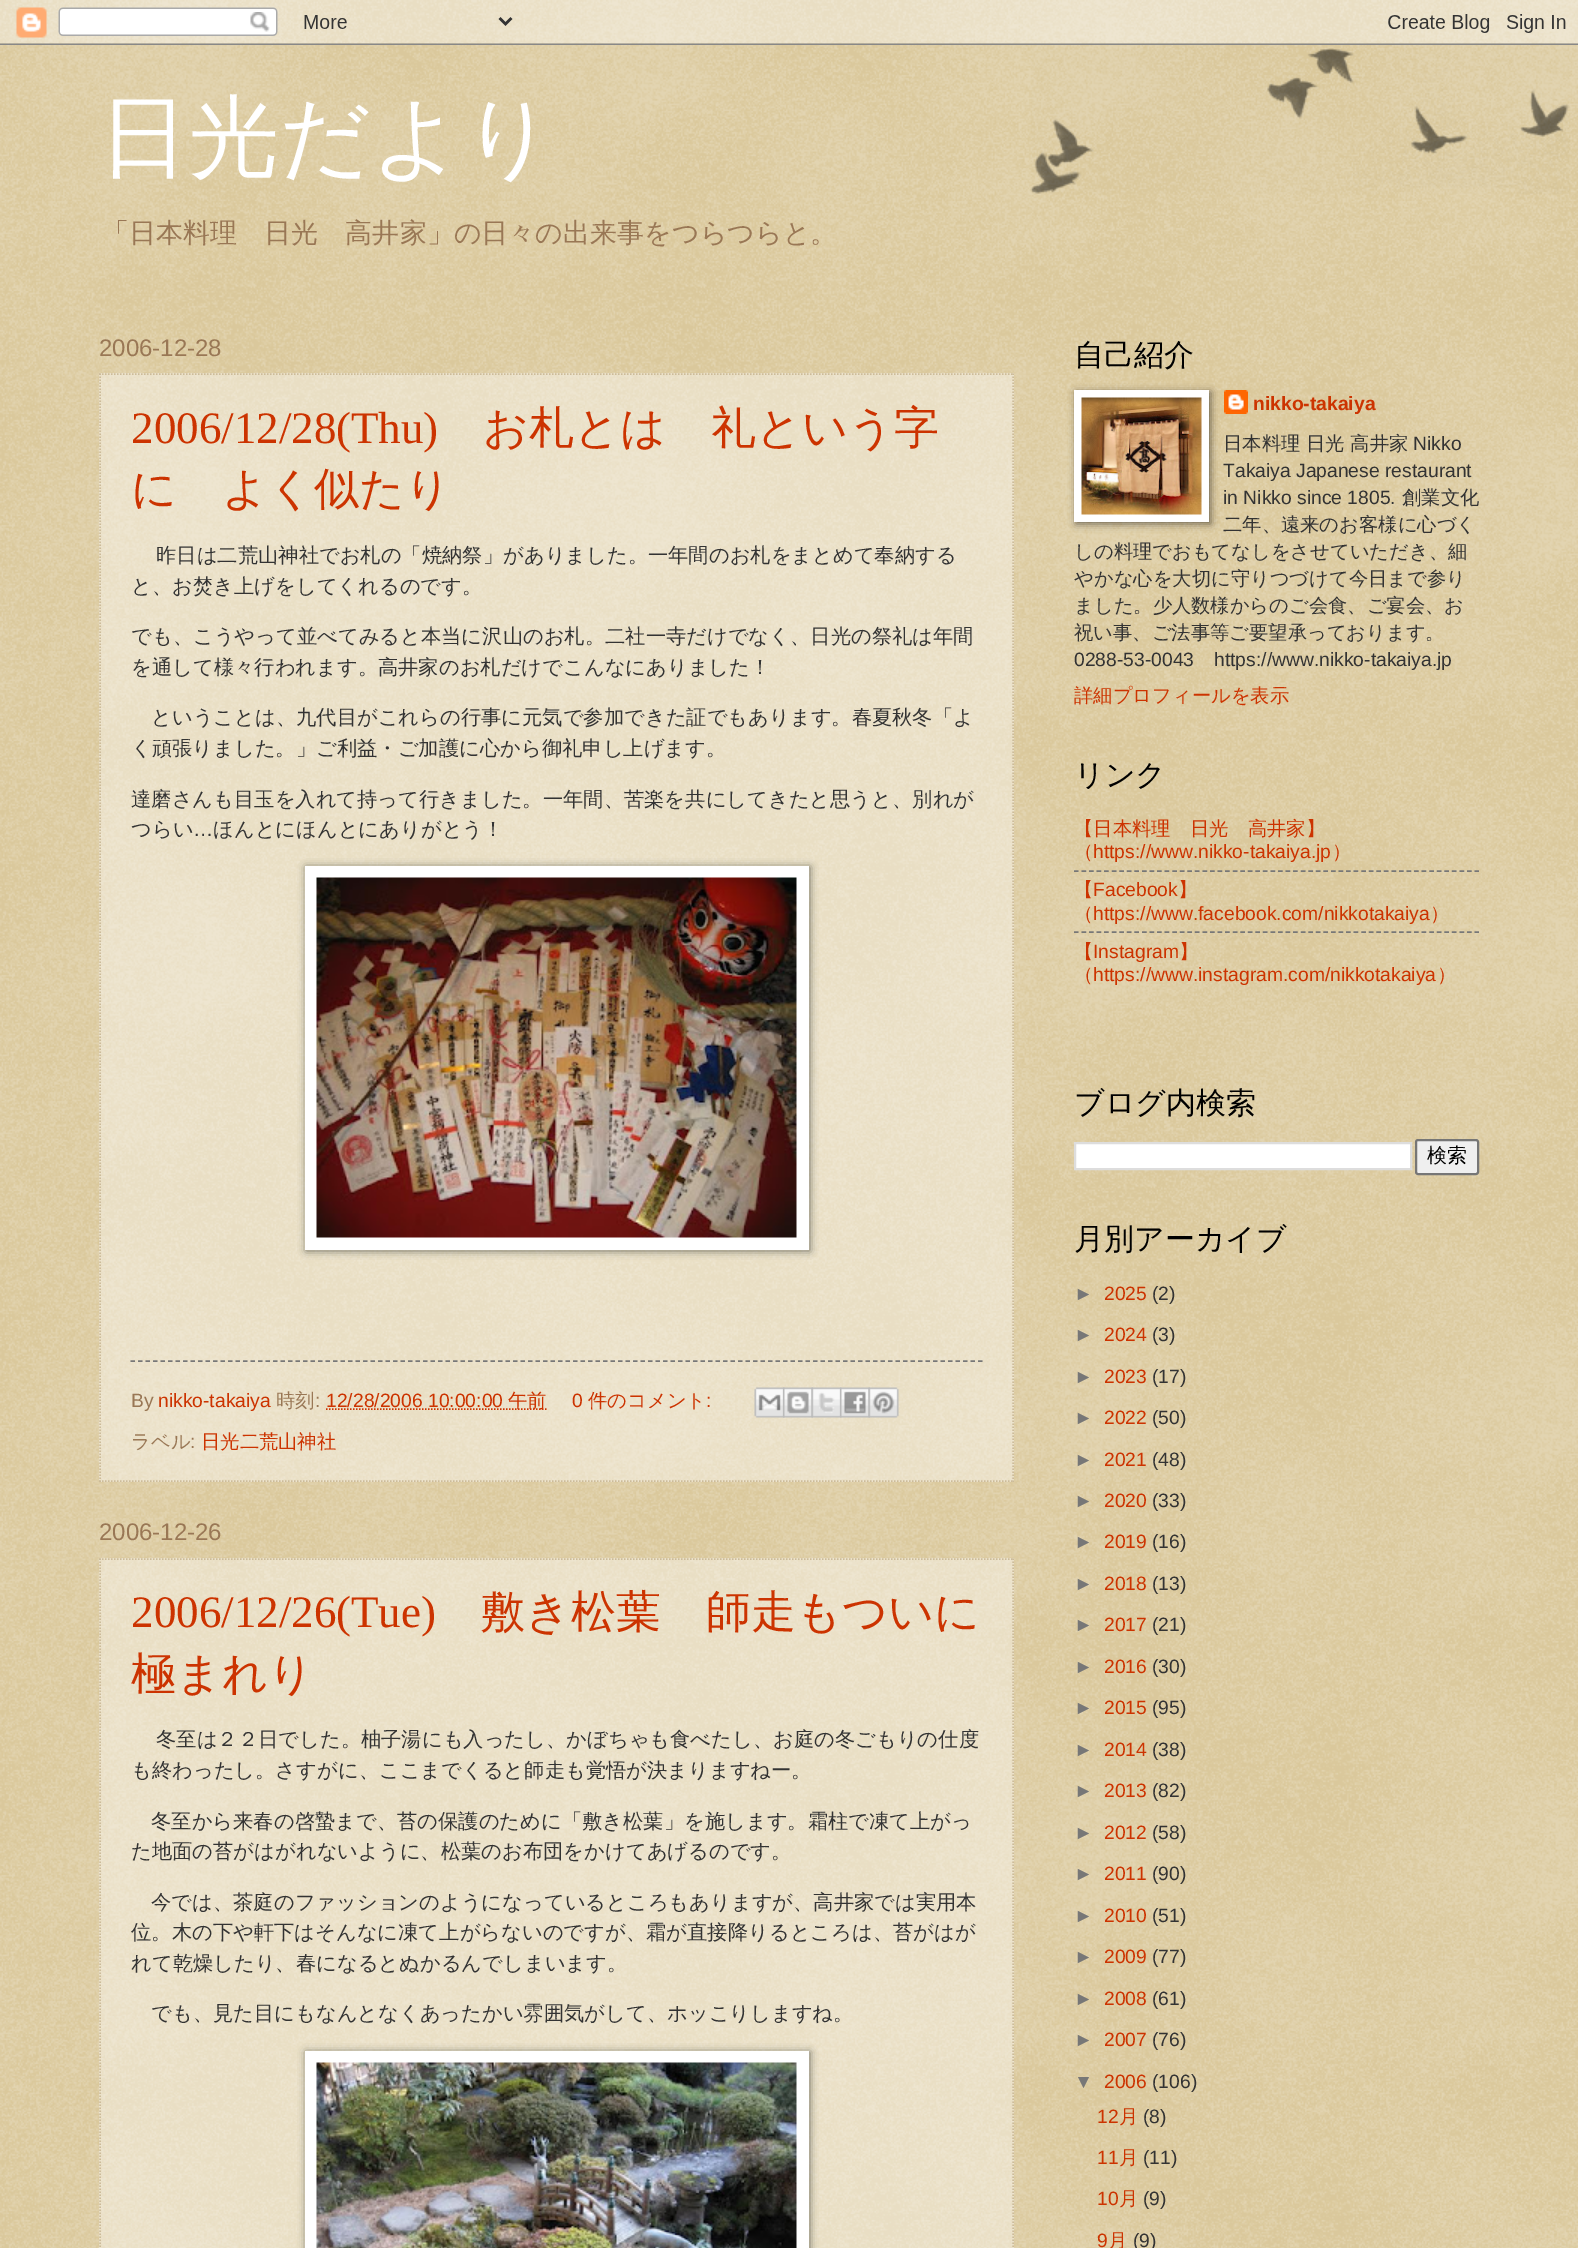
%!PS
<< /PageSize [1578 2248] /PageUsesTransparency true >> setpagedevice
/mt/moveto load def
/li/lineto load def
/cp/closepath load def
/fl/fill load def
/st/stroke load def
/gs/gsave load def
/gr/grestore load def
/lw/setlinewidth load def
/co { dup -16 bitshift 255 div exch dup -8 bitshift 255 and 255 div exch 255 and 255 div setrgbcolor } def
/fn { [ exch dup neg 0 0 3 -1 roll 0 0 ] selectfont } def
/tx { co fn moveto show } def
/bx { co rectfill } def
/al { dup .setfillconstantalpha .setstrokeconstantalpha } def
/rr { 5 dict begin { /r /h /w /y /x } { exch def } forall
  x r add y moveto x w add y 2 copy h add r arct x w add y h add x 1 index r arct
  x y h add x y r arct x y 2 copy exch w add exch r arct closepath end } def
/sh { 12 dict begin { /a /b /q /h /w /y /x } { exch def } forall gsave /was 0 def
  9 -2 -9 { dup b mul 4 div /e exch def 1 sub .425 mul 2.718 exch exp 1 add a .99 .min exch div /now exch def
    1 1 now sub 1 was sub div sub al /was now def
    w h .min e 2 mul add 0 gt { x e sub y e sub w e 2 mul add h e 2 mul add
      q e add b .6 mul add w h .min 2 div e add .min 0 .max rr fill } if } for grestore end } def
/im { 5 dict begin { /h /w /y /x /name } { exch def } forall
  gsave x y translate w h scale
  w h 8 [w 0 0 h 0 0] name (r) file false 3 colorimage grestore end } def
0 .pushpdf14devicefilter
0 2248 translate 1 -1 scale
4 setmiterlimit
0 0 1578 2248 16#C0A154 bx
(media/1.raw) 0 0 1578 2248 im
(media/2.raw) 0 0 1578 45 im
(media/3.raw) 1030 48 540 146 im
0.4 al
99 373 915 1109 16#FFFFFF bx
1 al
16#CCBB99 co
1.5 lw
[1.5 1.5] 0 setdash
99 374 mt 1014 374 li st
1013 373.5 mt 1013 1482 li st
99 1481 mt 1014 1481 li st
100 373.5 mt 100 1482 li st
16#000000 co
306 867 504 384 0 4 .5 sh
305 866 504 384 16#FFFFFF bx
(media/4.raw) 316 877 481 361 im
16#777777 co
[4.5 3] 0 setdash
130.5 1361 mt 982.5 1361 li st
16#CC3300 co
[1.5 1.5] 0 setdash
326 1409 mt 547 1409 li st
(media/5.raw) 754 1387 31 31 im
(media/6.raw) 783 1387 30 31 im
(media/7.raw) 811 1387 31 31 im
(media/8.raw) 840 1387 30 31 im
(media/9.raw) 868 1387 31 31 im
0.4 al
99 1558 915 690 16#FFFFFF bx
1 al
16#CCBB99 co
99 1559 mt 1014 1559 li st
1013 1558.5 mt 1013 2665.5 li st
100 1558.5 mt 100 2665.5 li st
16#000000 co
306 2052 504 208 0 4 .5 sh
305 2051 504 197 16#FFFFFF bx
(media/10.raw) 316 2062 481 186 im
16#000000 co
1076 392 135 132 0 4 .5 sh
1074 390 135 132 16#FFFFFF bx
(media/11.raw) 1081 397 121 118 im
(media/12.raw) 1224 390 24 24 im
16#777777 co
[4.5 3.06] 0 setdash
1074 871 mt 1479 871 li st
1074 932 mt 1479 932 li st
16#FFFFFF co
1075 1143 mt 1411 1143 li 1411 1169 li 1075 1169 li cp gs fl gr
16#DDDDDD co
2 lw
[] 0 setdash
st
16#EFEFEF co
1416 1140 62 34 2 rr gs fl gr
16#767676 co
st
(日光だより) 99 168 /WenQuanYiZenHei-Medium 90 16#FFFFFF tx
(「日本料理　日光　高井家」の日々の出来事をつらつらと。) 102 242 /WenQuanYiZenHei-Medium 27.05 16#997755 tx
(2006-12-28) 99 356 /LiberationSans-Regular 24 16#997755 tx
(2006/12/28\(Thu\)) 131 443 /LiberationSerif-Regular 45 16#CC3300 tx
(お札とは　礼という字) 483 443 /WenQuanYiZenHei-Medium 45 16#CC3300 tx
(に　よく似たり) 131 504 /WenQuanYiZenHei-Medium 45 16#CC3300 tx
(昨日は二荒山神社でお札の「焼納祭」がありました。一年間のお札をまとめて奉納する) 156 562 /WenQuanYiZenHei-Medium 20.3 16#333333 tx
(と、お焚き上げをしてくれるのです。) 131 593 /WenQuanYiZenHei-Medium 20.3 16#333333 tx
(でも、こうやって並べてみると本当に沢山のお札。二社一寺だけでなく、日光の祭礼は年間) 131 643 /WenQuanYiZenHei-Medium 20.3 16#333333 tx
(を通して様々行われます。高井家のお札だけでこんなにありました！) 131 674 /WenQuanYiZenHei-Medium 20.3 16#333333 tx
(ということは、九代目がこれらの行事に元気で参加できた証でもあります。春夏秋冬「よ) 151 724 /WenQuanYiZenHei-Medium 20.3 16#333333 tx
(く頑張りました。」ご利益・ご加護に心から御礼申し上げます。) 131 755 /WenQuanYiZenHei-Medium 20.3 16#333333 tx
(達磨さんも目玉を入れて持って行きました。一年間、苦楽を共にしてきたと思うと、別れが) 131 806 /WenQuanYiZenHei-Medium 20.3 16#333333 tx
(つらい) 131 836 /WenQuanYiZenHei-Medium 20.3 16#333333 tx
(…) 193 836 /LiberationSans-Regular 20.3 16#333333 tx
(ほんとにほんとにありがとう！) 213 836 /WenQuanYiZenHei-Medium 20.3 16#333333 tx
(By) 131 1407 /LiberationSans-Regular 19.3 16#997755 tx
(nikko-takaiya) 158 1407 /LiberationSans-Regular 19.3 16#CC3300 tx
(時刻) 276 1407 /WenQuanYiZenHei-Medium 19.3 16#997755 tx
(:) 315 1407 /LiberationSans-Regular 19.3 16#997755 tx
(12/28/2006 10:00:00) 326 1407 /LiberationSans-Regular 19.3 16#CC3300 tx
(午前) 508 1407 /WenQuanYiZenHei-Medium 19.3 16#CC3300 tx
(0) 572 1407 /LiberationSans-Regular 19.3 16#CC3300 tx
(件のコメント) 588 1407 /WenQuanYiZenHei-Medium 19.3 16#CC3300 tx
(:) 706 1407 /LiberationSans-Regular 19.3 16#CC3300 tx
(ラベル) 131 1448 /WenQuanYiZenHei-Medium 19.3 16#997755 tx
(:) 190 1448 /LiberationSans-Regular 19.3 16#997755 tx
(日光二荒山神社) 201 1448 /WenQuanYiZenHei-Medium 19.3 16#CC3300 tx
(2006-12-26) 99 1540 /LiberationSans-Regular 24 16#997755 tx
(2006/12/26\(Tue\)) 131 1627 /LiberationSerif-Regular 45 16#CC3300 tx
(敷き松葉　師走もついに) 480 1627 /WenQuanYiZenHei-Medium 45 16#CC3300 tx
(極まれり) 131 1689 /WenQuanYiZenHei-Medium 45 16#CC3300 tx
(冬至は２２日でした。柚子湯にも入ったし、かぼちゃも食べたし、お庭の冬ごもりの仕度) 156 1746 /WenQuanYiZenHei-Medium 20.3 16#333333 tx
(も終わったし。さすがに、ここまでくると師走も覚悟が決まりますねー。) 131 1777 /WenQuanYiZenHei-Medium 20.3 16#333333 tx
(冬至から来春の啓蟄まで、苔の保護のために「敷き松葉」を施します。霜柱で凍て上がっ) 151 1828 /WenQuanYiZenHei-Medium 20.3 16#333333 tx
(た地面の苔がはがれないように、松葉のお布団をかけてあげるのです。) 131 1858 /WenQuanYiZenHei-Medium 20.3 16#333333 tx
(今では、茶庭のファッションのようになっているところもありますが、高井家では実用本) 151 1909 /WenQuanYiZenHei-Medium 20.3 16#333333 tx
(位。木の下や軒下はそんなに凍て上がらないのですが、霜が直接降りるところは、苔がはが) 131 1939 /WenQuanYiZenHei-Medium 20.3 16#333333 tx
(れて乾燥したり、春になるとぬかるんでしまいます。) 131 1970 /WenQuanYiZenHei-Medium 20.3 16#333333 tx
(でも、見た目にもなんとなくあったかい雰囲気がして、ホッこりしますね。) 151 2020 /WenQuanYiZenHei-Medium 20.3 16#333333 tx
(自己紹介) 1074 365 /WenQuanYiZenHei-Medium 30 16#000000 tx
(nikko-takaiya) 1253 410 /LiberationSans-Bold 19.3 16#CC3300 tx
(日本料理 日光 高井家) 1223 450 /WenQuanYiZenHei-Medium 19.3 16#333333 tx
(Nikko) 1413 450 /LiberationSans-Regular 19.3 16#333333 tx
(Takaiya Japanese restaurant) 1223 477 /LiberationSans-Regular 19.3 16#333333 tx
(in Nikko since 1805.) 1223 504 /LiberationSans-Regular 19.3 16#333333 tx
(創業文化) 1402 504 /WenQuanYiZenHei-Medium 19.3 16#333333 tx
(二年、遠来のお客様に心づく) 1223 531 /WenQuanYiZenHei-Medium 19.3 16#333333 tx
(しの料理でおもてなしをさせていただき、細) 1074 558 /WenQuanYiZenHei-Medium 19.3 16#333333 tx
(やかな心を大切に守りつづけて今日まで参り) 1074 585 /WenQuanYiZenHei-Medium 19.3 16#333333 tx
(ました。少人数様からのご会食、ご宴会、お) 1074 612 /WenQuanYiZenHei-Medium 19.3 16#333333 tx
(祝い事、ご法事等ご要望承っております。) 1074 639 /WenQuanYiZenHei-Medium 19.3 16#333333 tx
(0288-53-0043) 1074 666 /LiberationSans-Regular 19.3 16#333333 tx
(https://www.nikko-takaiya.jp) 1214 666 /LiberationSans-Regular 19.3 16#333333 tx
(詳細プロフィールを表示) 1074 702 /WenQuanYiZenHei-Medium 19.3 16#CC3300 tx
(リンク) 1074 785 /WenQuanYiZenHei-Medium 30 16#000000 tx
(【日本料理　日光　高井家】) 1074 835 /WenQuanYiZenHei-Medium 19.3 16#CC3300 tx
(（) 1074 858 /WenQuanYiZenHei-Medium 19.3 16#CC3300 tx
(https://www.nikko-takaiya.jp) 1093 858 /LiberationSans-Regular 19.3 16#CC3300 tx
(）) 1332 858 /WenQuanYiZenHei-Medium 19.3 16#CC3300 tx
(【) 1074 896 /WenQuanYiZenHei-Medium 19.3 16#CC3300 tx
(Facebook) 1093 896 /LiberationSans-Regular 19.3 16#CC3300 tx
(】) 1178 896 /WenQuanYiZenHei-Medium 19.3 16#CC3300 tx
(（) 1074 920 /WenQuanYiZenHei-Medium 19.3 16#CC3300 tx
(https://www.facebook.com/nikkotakaiya) 1093 920 /LiberationSans-Regular 19.3 16#CC3300 tx
(）) 1430 920 /WenQuanYiZenHei-Medium 19.3 16#CC3300 tx
(【) 1074 958 /WenQuanYiZenHei-Medium 19.3 16#CC3300 tx
(Instagram) 1093 958 /LiberationSans-Regular 19.3 16#CC3300 tx
(】) 1179 958 /WenQuanYiZenHei-Medium 19.3 16#CC3300 tx
(（) 1074 981 /WenQuanYiZenHei-Medium 19.3 16#CC3300 tx
(https://www.instagram.com/nikkotakaiya) 1093 981 /LiberationSans-Regular 19.3 16#CC3300 tx
(）) 1437 981 /WenQuanYiZenHei-Medium 19.3 16#CC3300 tx
(ブログ内検索) 1074 1113 /WenQuanYiZenHei-Medium 30 16#000000 tx
(検索) 1427 1162 /WenQuanYiZenHei-Medium 20 16#000000 tx
(月別アーカイブ) 1074 1249 /WenQuanYiZenHei-Medium 30 16#000000 tx
(►) 1074 1300 /LiberationSans-Regular 19.3 16#777777 tx
(2025) 1104 1300 /LiberationSans-Regular 19.3 16#CC3300 tx
(\(2\)) 1152 1300 /LiberationSans-Regular 19.3 16#333333 tx
(►) 1074 1341 /LiberationSans-Regular 19.3 16#777777 tx
(2024) 1104 1341 /LiberationSans-Regular 19.3 16#CC3300 tx
(\(3\)) 1152 1341 /LiberationSans-Regular 19.3 16#333333 tx
(►) 1074 1383 /LiberationSans-Regular 19.3 16#777777 tx
(2023) 1104 1383 /LiberationSans-Regular 19.3 16#CC3300 tx
(\(17\)) 1152 1383 /LiberationSans-Regular 19.3 16#333333 tx
(►) 1074 1424 /LiberationSans-Regular 19.3 16#777777 tx
(2022) 1104 1424 /LiberationSans-Regular 19.3 16#CC3300 tx
(\(50\)) 1152 1424 /LiberationSans-Regular 19.3 16#333333 tx
(►) 1074 1466 /LiberationSans-Regular 19.3 16#777777 tx
(2021) 1104 1466 /LiberationSans-Regular 19.3 16#CC3300 tx
(\(48\)) 1152 1466 /LiberationSans-Regular 19.3 16#333333 tx
(►) 1074 1507 /LiberationSans-Regular 19.3 16#777777 tx
(2020) 1104 1507 /LiberationSans-Regular 19.3 16#CC3300 tx
(\(33\)) 1152 1507 /LiberationSans-Regular 19.3 16#333333 tx
(►) 1074 1548 /LiberationSans-Regular 19.3 16#777777 tx
(2019) 1104 1548 /LiberationSans-Regular 19.3 16#CC3300 tx
(\(16\)) 1152 1548 /LiberationSans-Regular 19.3 16#333333 tx
(►) 1074 1590 /LiberationSans-Regular 19.3 16#777777 tx
(2018) 1104 1590 /LiberationSans-Regular 19.3 16#CC3300 tx
(\(13\)) 1152 1590 /LiberationSans-Regular 19.3 16#333333 tx
(►) 1074 1631 /LiberationSans-Regular 19.3 16#777777 tx
(2017) 1104 1631 /LiberationSans-Regular 19.3 16#CC3300 tx
(\(21\)) 1152 1631 /LiberationSans-Regular 19.3 16#333333 tx
(►) 1074 1673 /LiberationSans-Regular 19.3 16#777777 tx
(2016) 1104 1673 /LiberationSans-Regular 19.3 16#CC3300 tx
(\(30\)) 1152 1673 /LiberationSans-Regular 19.3 16#333333 tx
(►) 1074 1714 /LiberationSans-Regular 19.3 16#777777 tx
(2015) 1104 1714 /LiberationSans-Regular 19.3 16#CC3300 tx
(\(95\)) 1152 1714 /LiberationSans-Regular 19.3 16#333333 tx
(►) 1074 1756 /LiberationSans-Regular 19.3 16#777777 tx
(2014) 1104 1756 /LiberationSans-Regular 19.3 16#CC3300 tx
(\(38\)) 1152 1756 /LiberationSans-Regular 19.3 16#333333 tx
(►) 1074 1797 /LiberationSans-Regular 19.3 16#777777 tx
(2013) 1104 1797 /LiberationSans-Regular 19.3 16#CC3300 tx
(\(82\)) 1152 1797 /LiberationSans-Regular 19.3 16#333333 tx
(►) 1074 1839 /LiberationSans-Regular 19.3 16#777777 tx
(2012) 1104 1839 /LiberationSans-Regular 19.3 16#CC3300 tx
(\(58\)) 1152 1839 /LiberationSans-Regular 19.3 16#333333 tx
(►) 1074 1880 /LiberationSans-Regular 19.3 16#777777 tx
(2011) 1104 1880 /LiberationSans-Regular 19.3 16#CC3300 tx
(\(90\)) 1152 1880 /LiberationSans-Regular 19.3 16#333333 tx
(►) 1074 1922 /LiberationSans-Regular 19.3 16#777777 tx
(2010) 1104 1922 /LiberationSans-Regular 19.3 16#CC3300 tx
(\(51\)) 1152 1922 /LiberationSans-Regular 19.3 16#333333 tx
(►) 1074 1963 /LiberationSans-Regular 19.3 16#777777 tx
(2009) 1104 1963 /LiberationSans-Regular 19.3 16#CC3300 tx
(\(77\)) 1152 1963 /LiberationSans-Regular 19.3 16#333333 tx
(►) 1074 2005 /LiberationSans-Regular 19.3 16#777777 tx
(2008) 1104 2005 /LiberationSans-Regular 19.3 16#CC3300 tx
(\(61\)) 1152 2005 /LiberationSans-Regular 19.3 16#333333 tx
(►) 1074 2046 /LiberationSans-Regular 19.3 16#777777 tx
(2007) 1104 2046 /LiberationSans-Regular 19.3 16#CC3300 tx
(\(76\)) 1152 2046 /LiberationSans-Regular 19.3 16#333333 tx
(▼) 1074 2088 /LiberationSans-Regular 19.3 16#777777 tx
(2006) 1104 2088 /LiberationSans-Regular 19.3 16#CC3300 tx
(\(106\)) 1152 2088 /LiberationSans-Regular 19.3 16#333333 tx
(12) 1097 2123 /LiberationSans-Regular 19.3 16#CC3300 tx
(月) 1119 2123 /WenQuanYiZenHei-Medium 19.3 16#CC3300 tx
(\(8\)) 1143 2123 /LiberationSans-Regular 19.3 16#333333 tx
(11) 1097 2164 /LiberationSans-Regular 19.3 16#CC3300 tx
(月) 1119 2164 /WenQuanYiZenHei-Medium 19.3 16#CC3300 tx
(\(11\)) 1143 2164 /LiberationSans-Regular 19.3 16#333333 tx
(10) 1097 2205 /LiberationSans-Regular 19.3 16#CC3300 tx
(月) 1119 2205 /WenQuanYiZenHei-Medium 19.3 16#CC3300 tx
(\(9\)) 1143 2205 /LiberationSans-Regular 19.3 16#333333 tx
(9) 1097 2247 /LiberationSans-Regular 19.3 16#CC3300 tx
(月) 1108 2247 /WenQuanYiZenHei-Medium 19.3 16#CC3300 tx
(\(9\)) 1133 2247 /LiberationSans-Regular 19.3 16#333333 tx
.poppdf14devicefilter showpage
